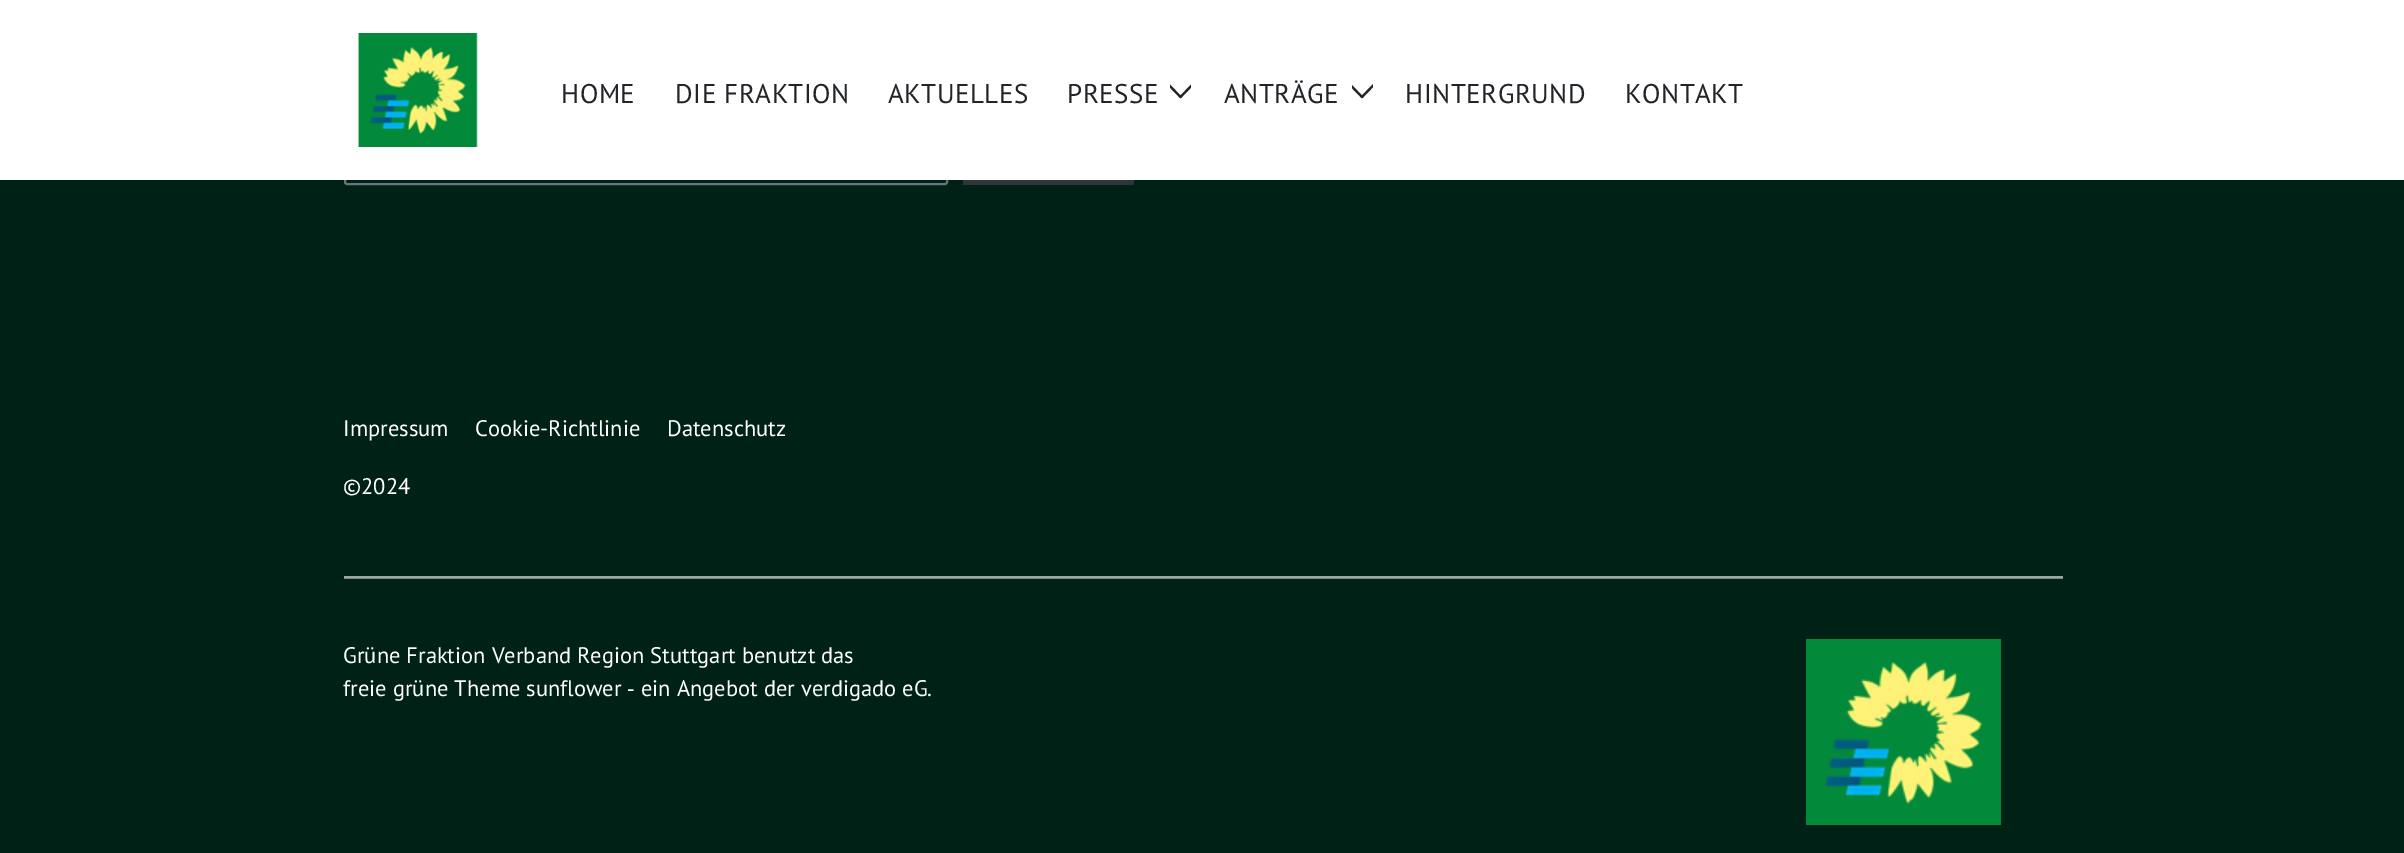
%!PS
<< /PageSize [2404 853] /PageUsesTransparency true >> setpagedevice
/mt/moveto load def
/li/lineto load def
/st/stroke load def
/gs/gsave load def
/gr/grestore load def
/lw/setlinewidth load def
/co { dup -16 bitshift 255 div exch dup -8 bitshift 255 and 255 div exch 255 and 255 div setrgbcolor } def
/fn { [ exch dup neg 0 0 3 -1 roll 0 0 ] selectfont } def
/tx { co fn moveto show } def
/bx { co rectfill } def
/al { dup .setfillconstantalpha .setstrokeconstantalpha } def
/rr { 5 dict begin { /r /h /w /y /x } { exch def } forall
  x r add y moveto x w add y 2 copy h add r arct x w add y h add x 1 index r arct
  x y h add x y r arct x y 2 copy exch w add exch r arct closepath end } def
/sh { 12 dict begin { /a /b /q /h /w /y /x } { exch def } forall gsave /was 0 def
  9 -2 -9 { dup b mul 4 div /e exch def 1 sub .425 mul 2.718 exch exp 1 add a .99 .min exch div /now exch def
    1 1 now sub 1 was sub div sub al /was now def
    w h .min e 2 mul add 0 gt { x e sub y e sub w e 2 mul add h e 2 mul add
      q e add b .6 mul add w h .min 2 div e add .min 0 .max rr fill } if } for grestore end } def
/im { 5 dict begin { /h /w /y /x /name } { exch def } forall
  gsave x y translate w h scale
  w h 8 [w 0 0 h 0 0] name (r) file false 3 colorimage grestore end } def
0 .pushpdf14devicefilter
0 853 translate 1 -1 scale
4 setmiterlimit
0 0 2404 853 16#002216 bx
16#6B7A80 co
2 lw
345 99 602 85 2 rr st
963 180 171 5 16#32373C bx
16#000000 co
0 2 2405 180 0 15 .08 sh
0 0 2404 180 16#FFFFFF bx
(media/1.raw) 358 33 120 114 im
gs
1170 72 21 36 rectclip
16#212529 co
2.2 lw
1 setlinecap
1 setlinejoin
1167 83 mt 1180.5 97 li 1194 83 li st
gr
gs
1352 72 21 36 rectclip
16#212529 co
2.2 lw
1 setlinecap
1 setlinejoin
1348.5 83 mt 1362 97 li 1375.5 83 li st
gr
344 578 1719 1 16#7A8883 bx
344 576 1719 2 16#99A7A2 bx
(media/2.raw) 1806 639 195 186 im
/PTSans-Regular 27 fn
16#212529 co
561 103 mt .5 0 (HOME) ashow
675 103 mt .5 0 (DIE FRAKTION) ashow
888 103 mt .5 0 (AKTUELLES) ashow
1067 103 mt .5 0 (PRESSE) ashow
1224 103 mt .5 0 (ANTRÄGE) ashow
1405 103 mt .5 0 (HINTERGRUND) ashow
1625 103 mt .5 0 (KONTAKT) ashow
(Impressum) 343 436 /PTSans-Regular 22.5 16#FFFFFF tx
(Cookie-Richtlinie) 475 436 /PTSans-Regular 22.5 16#FFFFFF tx
(Datenschutz) 667 436 /PTSans-Regular 22.5 16#FFFFFF tx
(©2024) 343 494 /PTSans-Regular 22.5 16#FFFFFF tx
(Grüne Fraktion Verband Region Stuttgart benutzt das) 343 663 /PTSans-Regular 22.5 16#FFFFFF tx
(freie grüne Theme sunflower) 343 696 /PTSans-Regular 22.5 16#FFFFFF tx
(‐) 627 696 /LiberationSans-Regular 22.5 16#FFFFFF tx
(ein Angebot der verdigado eG.) 641 696 /PTSans-Regular 22.5 16#FFFFFF tx
.poppdf14devicefilter showpage
